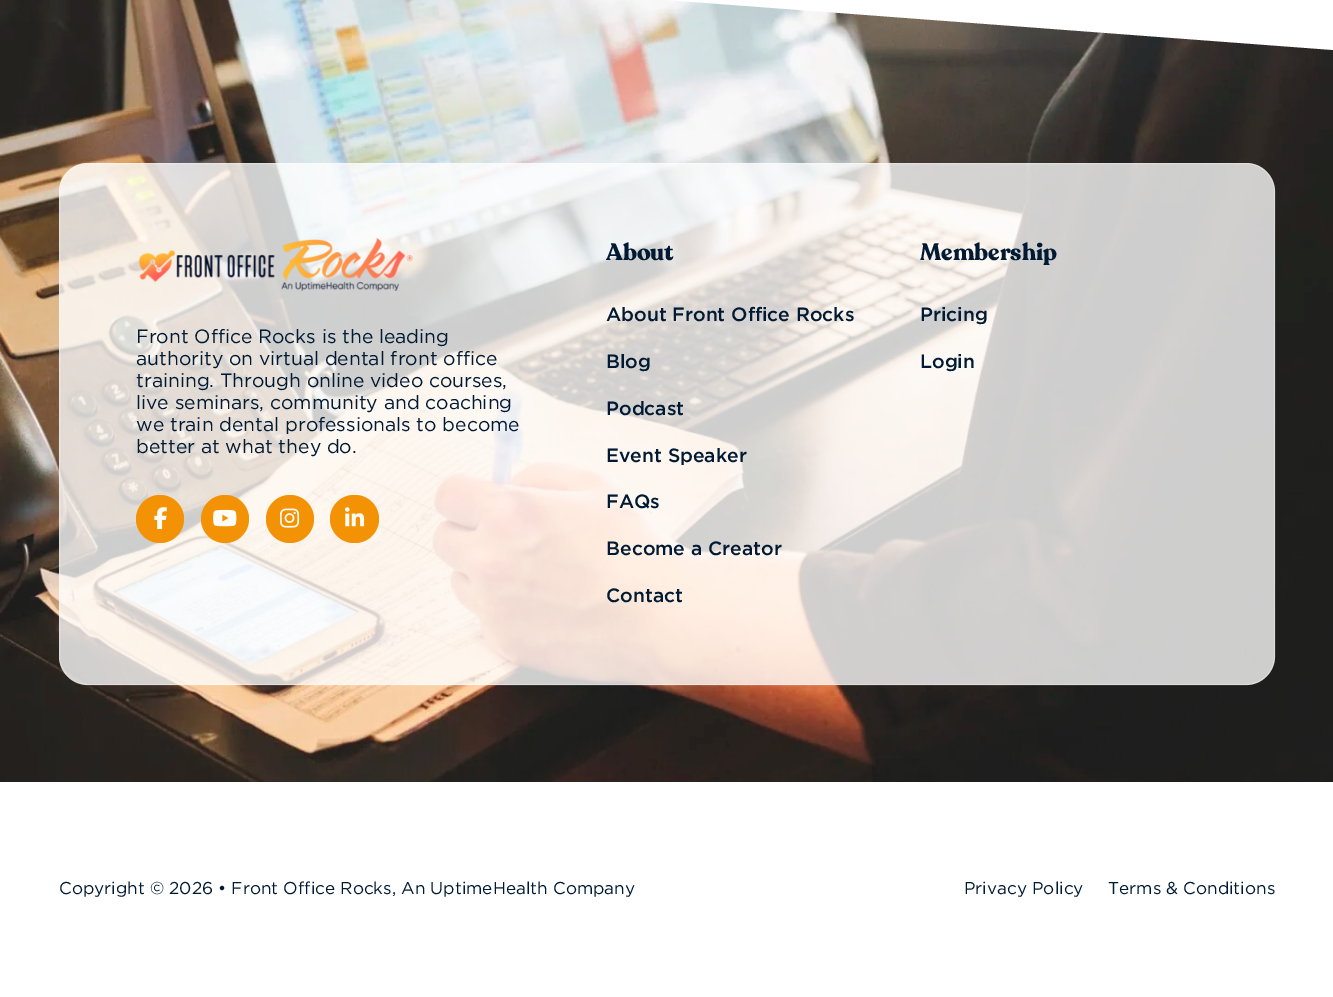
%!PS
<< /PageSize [1333 997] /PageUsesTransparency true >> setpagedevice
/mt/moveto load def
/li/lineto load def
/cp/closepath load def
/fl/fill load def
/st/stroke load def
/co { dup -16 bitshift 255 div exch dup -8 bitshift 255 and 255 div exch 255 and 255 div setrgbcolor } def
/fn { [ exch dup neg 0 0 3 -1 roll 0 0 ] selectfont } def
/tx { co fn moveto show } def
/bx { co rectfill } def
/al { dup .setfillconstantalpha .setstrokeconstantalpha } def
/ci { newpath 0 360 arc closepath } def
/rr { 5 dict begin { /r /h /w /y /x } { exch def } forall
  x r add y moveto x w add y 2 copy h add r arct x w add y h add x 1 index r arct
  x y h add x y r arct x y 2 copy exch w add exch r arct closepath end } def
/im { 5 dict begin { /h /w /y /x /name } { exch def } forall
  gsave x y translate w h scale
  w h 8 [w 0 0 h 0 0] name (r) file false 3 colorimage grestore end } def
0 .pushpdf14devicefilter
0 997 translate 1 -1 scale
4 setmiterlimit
0 0 1333 997 16#FFFFFF bx
(media/1.raw) 0 0 1333 782 im
0 -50 mt 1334 50 li 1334 -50 li cp eofill
0.78 al
59 163 1216 522 29 rr fl
0.3 al
59.5 163.5 1215 521 28.5 rr st
1 al
(media/2.raw) 138 238 275 53 im
16#F39205 co
160 519 24 ci fl
(media/3.raw) 154 507 13 22 im
225 519 24 ci fl
(media/4.raw) 213 509 24 18 im
290 519 24 ci fl
(media/5.raw) 280 508 20 20 im
330 495 49 48 24 rr fl
(media/6.raw) 345 507 20 20 im
(Front Office Rocks is the leading) 136 343 /Gotham-Regular 19.25 16#001A33 tx
(authority on virtual dental front office) 136 365 /Gotham-Regular 19.25 16#001A33 tx
(training. Through online video courses,) 136 387 /Gotham-Regular 19.25 16#001A33 tx
(live seminars, community and coaching) 136 409 /Gotham-Regular 19.25 16#001A33 tx
(we train dental professionals to become) 136 431 /Gotham-Regular 19.25 16#001A33 tx
(better at what they do.) 136 453 /Gotham-Regular 19.25 16#001A33 tx
(About) 606 260 /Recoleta-Bold 23.5 16#001A33 tx
(About Front Office Rocks) 606 321 /Gotham-Medium 19.25 16#001A33 tx
(Blog) 606 368 /Gotham-Medium 19.25 16#001A33 tx
(Podcast) 606 415 /Gotham-Medium 19.25 16#001A33 tx
(Event Speaker) 606 462 /Gotham-Medium 19.25 16#001A33 tx
(FAQs) 606 508 /Gotham-Medium 19.25 16#001A33 tx
(Become a Creator) 606 555 /Gotham-Medium 19.25 16#001A33 tx
(Contact) 606 602 /Gotham-Medium 19.25 16#001A33 tx
(Membership) 920 260 /Recoleta-Bold 23.5 16#001A33 tx
(Pricing) 920 321 /Gotham-Medium 19.25 16#001A33 tx
(Login) 920 368 /Gotham-Medium 19.25 16#001A33 tx
(Copyright © 2026 • Front Office Rocks, An UptimeHealth Company) 59 894 /Gotham-Regular 17.15 16#001A33 tx
(Privacy Policy) 964 894 /Gotham-Regular 17.15 16#001A33 tx
(Terms & Conditions) 1108 894 /Gotham-Regular 17.15 16#001A33 tx
.poppdf14devicefilter showpage
